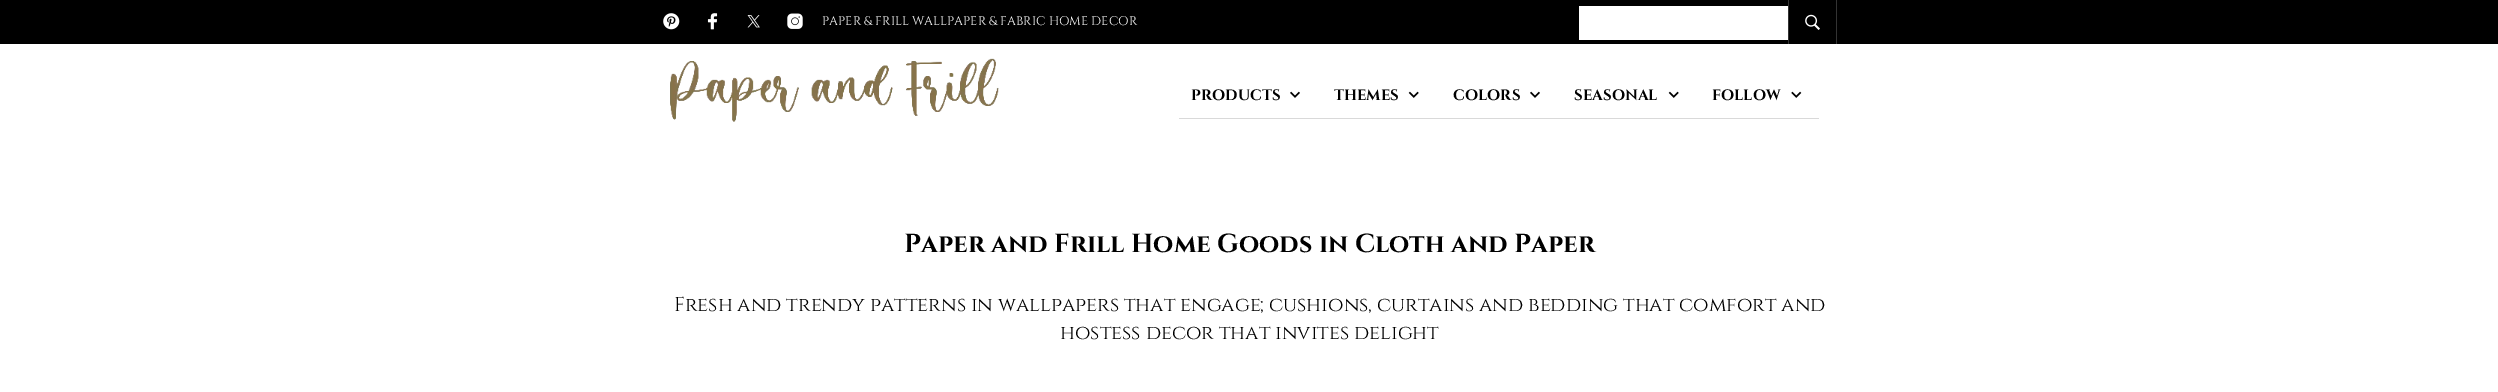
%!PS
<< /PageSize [2498 392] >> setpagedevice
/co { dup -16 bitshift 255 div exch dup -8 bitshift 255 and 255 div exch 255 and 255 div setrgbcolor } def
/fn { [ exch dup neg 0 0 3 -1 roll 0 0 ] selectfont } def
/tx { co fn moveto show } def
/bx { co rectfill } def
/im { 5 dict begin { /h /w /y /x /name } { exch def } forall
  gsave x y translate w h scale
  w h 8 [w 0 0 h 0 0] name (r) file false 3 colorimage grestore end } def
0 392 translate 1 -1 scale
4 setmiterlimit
0 0 2498 392 16#FFFFFF bx
0 0 2498 44 16#000000 bx
(media/1.raw) 663 13 17 17 im
(media/2.raw) 707 13 11 17 im
(media/3.raw) 747 15 13 13 im
(media/4.raw) 787 13 16 16 im
1579 6 209 34 16#FFFFFF bx
1836 0 1 44 16#333333 bx
1788 0 1 44 16#333333 bx
(media/5.raw) 1805 14 15 16 im
(media/6.raw) 670 58 329 64 im
1179 118 640 1 16#D9D9D9 bx
(media/7.raw) 1290 91 10 7 im
(media/8.raw) 1408 91 11 7 im
(media/7.raw) 1530 91 10 7 im
(media/8.raw) 1668 91 11 7 im
(media/9.raw) 1791 91 11 7 im
(PAPER & FRILL WALLPAPER & FABRIC HOME DECOR) 822 25 /Cinzel-Regular 12.5 16#FFFFFF tx
(PRODUCTS) 1191 100 /Cinzel-Bold 15 16#000000 tx
(THEMES) 1334 100 /Cinzel-Bold 15 16#000000 tx
(COLORS) 1453 100 /Cinzel-Bold 15 16#000000 tx
(SEASONAL) 1574 100 /Cinzel-Bold 15 16#000000 tx
(FOLLOW) 1712 100 /Cinzel-Bold 15 16#000000 tx
(Paper and Frill Home Goods in Cloth and Paper) 904 252 /Cinzel-Bold 26 16#000000 tx
(Fresh and trendy patterns in wallpapers that engage; cushions, curtains and bedding that comfort and) 674 311 /Cinzel-Regular 20 16#000000 tx
(hostess decor that invites delight) 1060 339 /Cinzel-Regular 20 16#000000 tx
showpage
